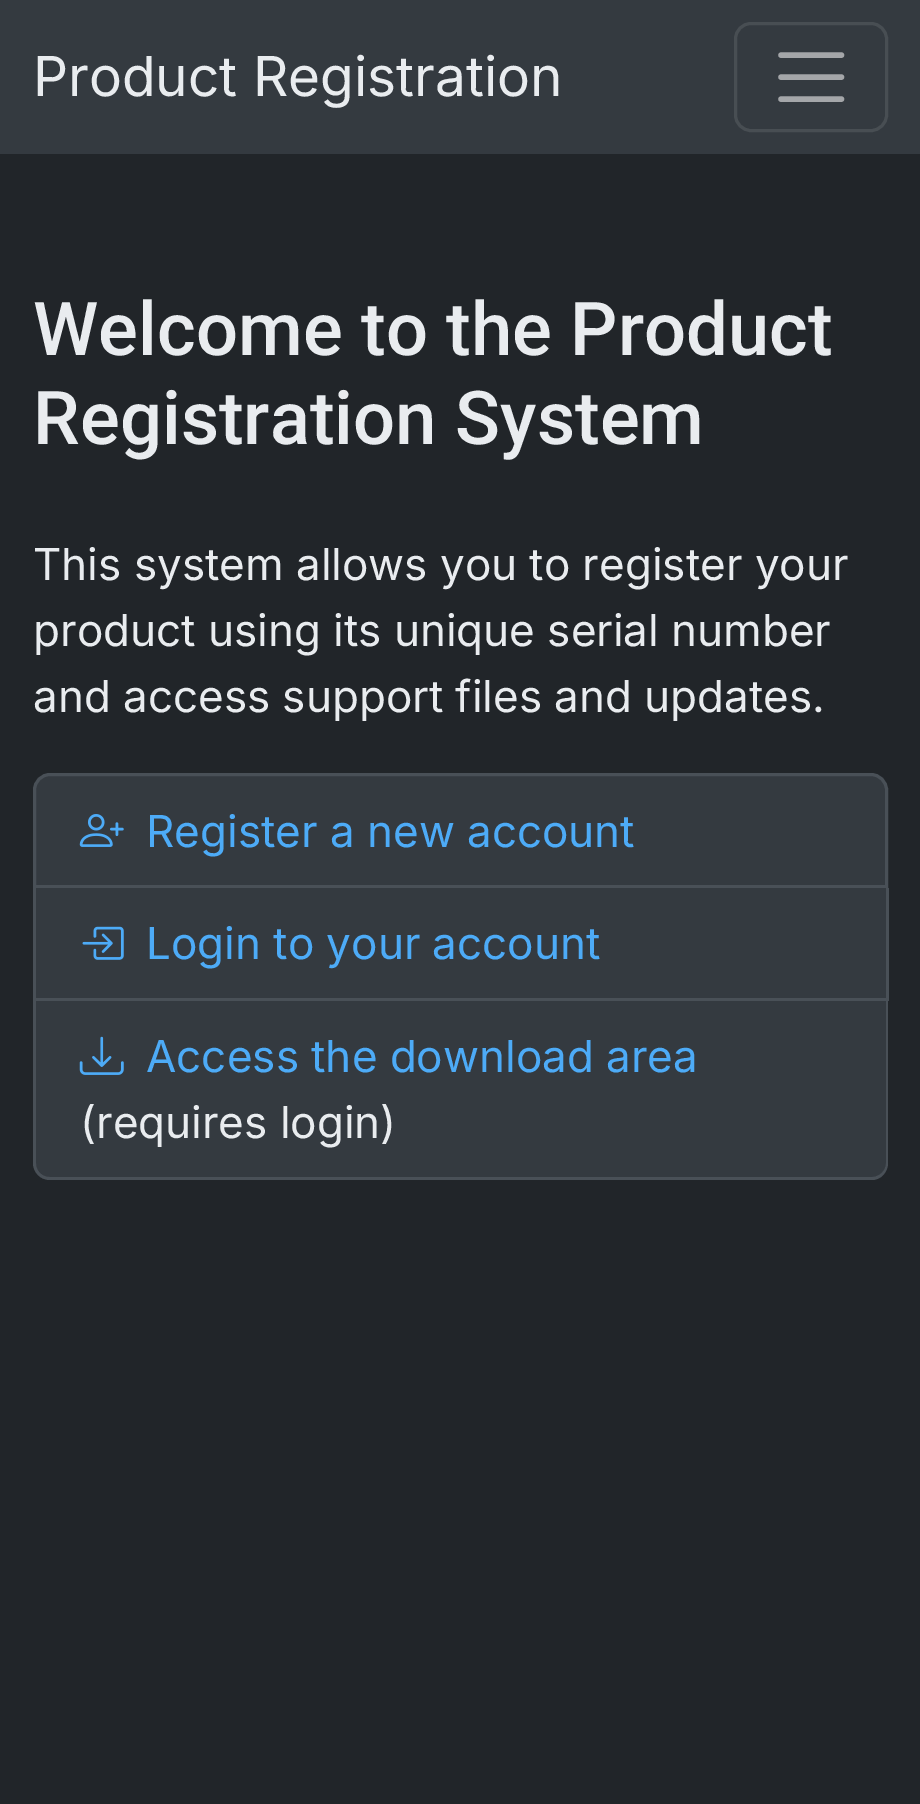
%!PS
<< /PageSize [920 1804] >> setpagedevice
/mt/moveto load def
/li/lineto load def
/ct/curveto load def
/cp/closepath load def
/fl/fill load def
/st/stroke load def
/gs/gsave load def
/gr/grestore load def
/lw/setlinewidth load def
/co { dup -16 bitshift 255 div exch dup -8 bitshift 255 and 255 div exch 255 and 255 div setrgbcolor } def
/fn { [ exch dup neg 0 0 3 -1 roll 0 0 ] selectfont } def
/tx { co fn moveto show } def
/bx { co rectfill } def
/rr { 5 dict begin { /r /h /w /y /x } { exch def } forall
  x r add y moveto x w add y 2 copy h add r arct x w add y h add x 1 index r arct
  x y h add x y r arct x y 2 copy exch w add exch r arct closepath end } def
/im { 5 dict begin { /h /w /y /x /name } { exch def } forall
  gsave x y translate w h scale
  w h 8 [w 0 0 h 0 0] name (r) file false 3 colorimage grestore end } def
0 1804 translate 1 -1 scale
4 setmiterlimit
0 0 920 1804 16#212529 bx
0 0 920 154 16#343A40 bx
16#484E53 co
3 lw
735.5 23.5 151 107 15.5 rr st
16#A4A6A9 co
5.5 lw
1 setlinecap
781 55 mt 841.5 55 li 781 77 mt 841.5 77 li 781 99 mt 841.5 99 li st
16#343A40 co
50 774.5 mt 871 774.5 li 879.5 774.5 886.5 781.5 886.5 790 ct 886.5 886.5 li 34.5 886.5 li 34.5 790 li 34.5 781.5 41.5 774.5 50 774.5 ct cp gs fl gr
16#495057 co
3 lw
0 setlinecap
st
(media/1.raw) 79 814 45 33 im
36 888 850 110 16#343A40 bx
886 888 3 113 16#495057 bx
33 998 855 3 16#495057 bx
33 888 3 113 16#495057 bx
(media/2.raw) 82 926 42 34 im
16#343A40 co
36 1001 mt 886 1001 li 886 1163 li 886 1170.5 879.5 1177 872 1177 ct 50 1177 li 42.5 1177 36 1170.5 36 1163 ct cp fl
16#495057 co
33 1001 mt 888 1001 li 888 1163 li 888 1172 881 1180 872 1180 ct 50 1180 li 40 1180 33 1172 33 1163 ct cp 36 1001 mt 886 1001 li 886 1163 li 886 1171 879 1177 872 1177 ct 50 1177 li 42 1177 36 1171 36 1163 ct cp eofill
(media/3.raw) 79 1036 45 39 im
(Product Registration) 33 96 /Inter-Regular 55 16#E9ECEF tx
(Welcome to the Product) 33 355 /Roboto-Medium 74.25 16#E9ECEF tx
(Registration System) 33 444 /Roboto-Medium 74.25 16#E9ECEF tx
(This system allows you to register your) 33 580 /Inter-Regular 44 16#E9ECEF tx
(product using its unique serial number) 33 646 /Inter-Regular 44 16#E9ECEF tx
(and access support files and updates.) 33 712 /Inter-Regular 44 16#E9ECEF tx
(Register a new account) 146 847 /Inter-Regular 44 16#4DABF7 tx
(Login to your account) 146 959 /Inter-Regular 44 16#4DABF7 tx
(Access the download area) 146 1072 /Inter-Regular 44 16#4DABF7 tx
(\(requires login\)) 80 1138 /Inter-Regular 44 16#E9ECEF tx
showpage
